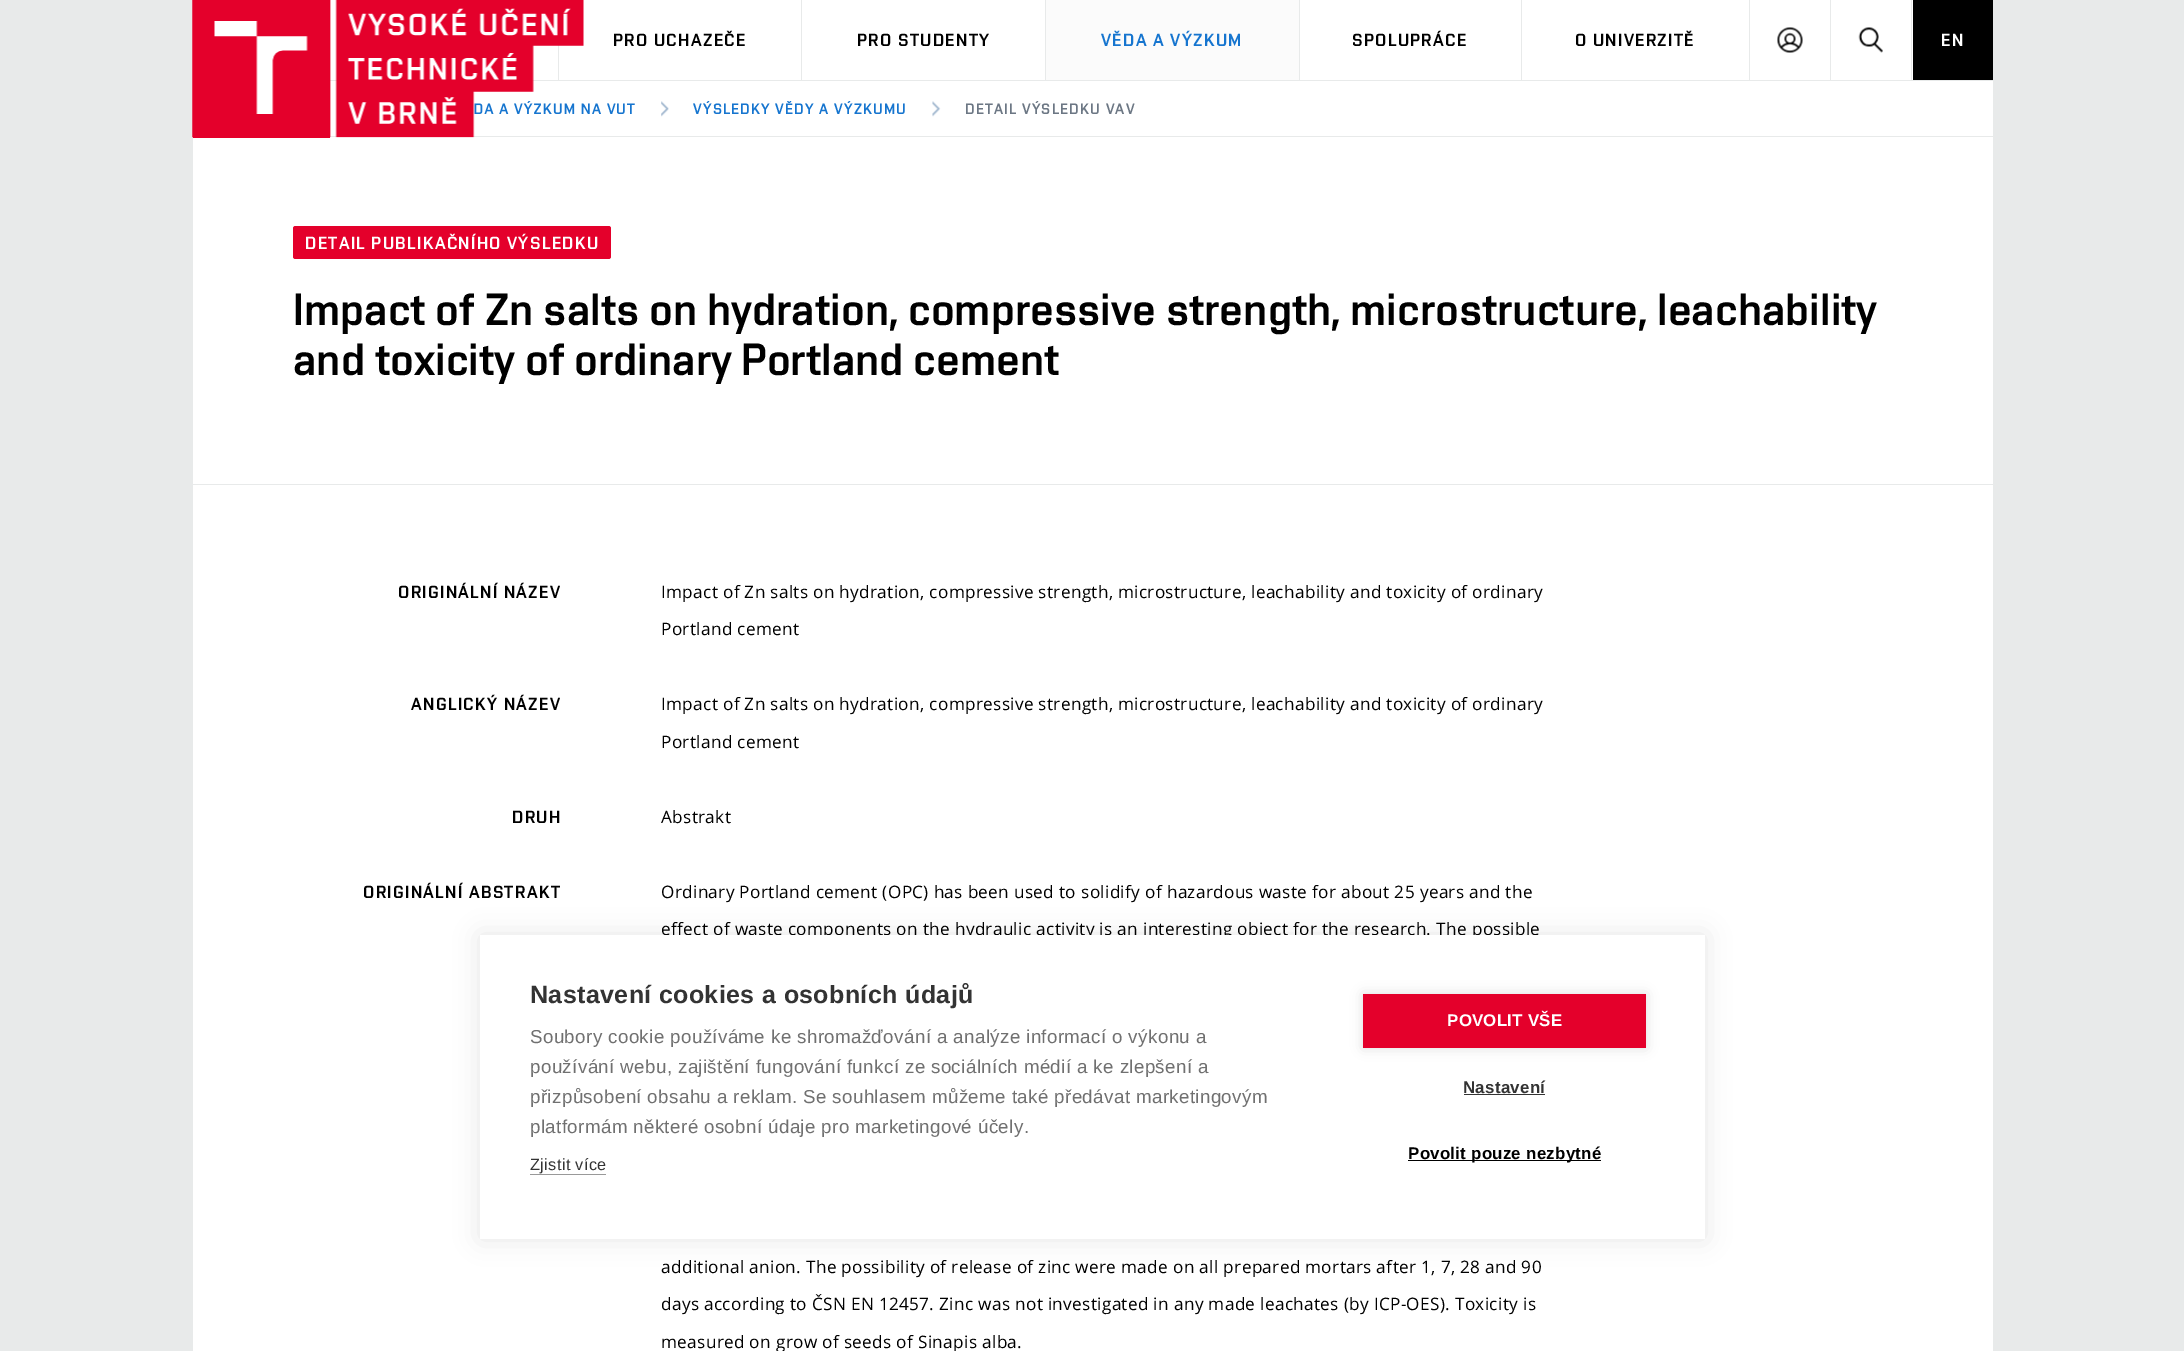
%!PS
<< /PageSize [2184 1351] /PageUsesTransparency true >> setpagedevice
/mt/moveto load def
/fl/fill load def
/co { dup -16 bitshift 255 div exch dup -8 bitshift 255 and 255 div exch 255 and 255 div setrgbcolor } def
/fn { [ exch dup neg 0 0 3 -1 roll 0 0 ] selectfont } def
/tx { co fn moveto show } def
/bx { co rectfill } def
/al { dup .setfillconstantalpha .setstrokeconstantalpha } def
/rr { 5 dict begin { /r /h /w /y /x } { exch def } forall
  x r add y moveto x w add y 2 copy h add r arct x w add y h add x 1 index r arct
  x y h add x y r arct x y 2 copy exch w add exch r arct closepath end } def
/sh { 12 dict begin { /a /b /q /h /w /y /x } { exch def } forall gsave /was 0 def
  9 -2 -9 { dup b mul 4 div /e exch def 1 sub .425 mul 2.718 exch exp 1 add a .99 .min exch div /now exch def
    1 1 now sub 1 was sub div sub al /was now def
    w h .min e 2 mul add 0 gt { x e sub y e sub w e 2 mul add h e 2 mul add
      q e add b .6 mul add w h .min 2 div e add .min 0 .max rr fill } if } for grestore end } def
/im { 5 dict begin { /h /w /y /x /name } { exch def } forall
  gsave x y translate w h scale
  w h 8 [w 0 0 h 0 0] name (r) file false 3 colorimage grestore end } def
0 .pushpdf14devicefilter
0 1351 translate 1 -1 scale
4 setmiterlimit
0 0 2184 1351 16#E8EAEA bx
193 0 1800 1351 16#FFFFFF bx
330 80 1663 1 16#E8EAEA bx
558 45 1 35 16#E8EAEA bx
801 0 1 80 16#E8EAEA bx
1045 0 1 80 16#E8EAEA bx
1046 0 253 80 16#FBFBFB bx
1299 0 1 80 16#E8EAEA bx
1521 0 1 80 16#E8EAEA bx
1749 0 1 80 16#E8EAEA bx
(media/3.raw) 1777 27 26 26 im
1830 0 1 80 16#E8EAEA bx
(media/4.raw) 1858 27 25 26 im
1911 0 1 80 16#E8EAEA bx
1913 0 80 80 16#000000 bx
330 136 1663 1 16#E8EAEA bx
(media/5.raw) 661 101 8 16 im
(media/6.raw) 932 101 9 16 im
16#E4002B co
293 226 318 33 2.5 rr fl
193 484 1800 1 16#E8EAEA bx
16#000000 co
480 935 1225 304 0 12.5 .1 sh
/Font-Regular 17.5 fn
613 46 mt 1.4 0 (PRO UCHAZEČE) ashow
857 46 mt 1.4 0 (PRO STUDENTY) ashow
16#1675CF co
1101 46 mt 1.4 0 (VĚDA A VÝZKUM) ashow
16#000000 co
1352 46 mt 1.4 0 (SPOLUPRÁCE) ashow
1575 46 mt 1.4 0 (O UNIVERZITĚ) ashow
16#FFFFFF co
1941 46 mt 1.4 0 (EN) ashow
/Font-Regular 15 fn
16#1675CF co
474 114 mt 1.2 0 (DA A VÝZKUM NA VUT) ashow
(media/1.raw) 192 0 392 138 im
193 0 137 138 16#E4002B bx
(media/2.raw) 192 0 139 138 im
16#1675CF co
693 114 mt 1.2 0 (VÝSLEDKY VĚDY A VÝZKUMU) ashow
16#6C7784 co
965 114 mt 1.2 0 (DETAIL VÝSLEDKU VAV) ashow
/Font-Regular 17.5 fn
16#FFFFFF co
305 249 mt 1.4 0 (DETAIL PUBLIKAČNÍHO VÝSLEDKU) ashow
(Impact of Zn salts on hydration, compressive strength, microstructure, leachability) 293 325 /Font-Regular 45 16#000000 tx
(and toxicity of ordinary Portland cement) 293 375 /Font-Regular 45 16#000000 tx
/Font-Regular 17.5 fn
398 598 mt 1.4 0 (ORIGINÁLNÍ NÁZEV) ashow
/OpenSans-Regular 17.5 fn
661 598 mt .35 0 (Impact of Zn salts on hydration, compressive strength, microstructure, leachability and toxicity of ordinary) ashow
661 635 mt .35 0 (Portland cement) ashow
/Font-Regular 17.5 fn
411 710 mt 1.4 0 (ANGLICKÝ NÁZEV) ashow
/OpenSans-Regular 17.5 fn
661 710 mt .35 0 (Impact of Zn salts on hydration, compressive strength, microstructure, leachability and toxicity of ordinary) ashow
661 748 mt .35 0 (Portland cement) ashow
/Font-Regular 17.5 fn
512 823 mt 1.4 0 (DRUH) ashow
/OpenSans-Regular 17.5 fn
661 823 mt .35 0 (Abstrakt) ashow
/Font-Regular 17.5 fn
363 898 mt 1.4 0 (ORIGINÁLNÍ ABSTRAKT) ashow
/OpenSans-Regular 17.5 fn
661 898 mt .35 0 (Ordinary Portland cement \(OPC\) has been used to solidify of hazardous waste for about 25 years and the) ashow
661 935 mt .35 0 (effect of waste components on the hydraulic activity is an interesting object for the research. The possible) ashow
661 1273 mt .35 0 (additional anion. The possibility of release of zinc were made on all prepared mortars after 1, 7, 28 and 90) ashow
661 1310 mt .35 0 (days according to ČSN EN 12457. Zinc was not investigated in any made leachates \(by ICP-OES\). Toxicity is) ashow
661 1348 mt .35 0 (measured on grow of seeds of Sinapis alba.) ashow
480 935 1225 304 16#FFFFFF bx
/LiberationSans-Bold 25 fn
16#333333 co
530 1003 mt .38 0 (Nastavení cookies a osobních údajů) ashow
/LiberationSans-Regular 18.75 fn
16#707070 co
530 1043 mt .38 0 (Soubory cookie používáme ke shromažďování a analýze informací o výkonu a) ashow
530 1073 mt .38 0 (používání webu, zajištění fungování funkcí ze sociálních médií a ke zlepšení a) ashow
530 1103 mt .38 0 (přizpůsobení obsahu a reklam. Se souhlasem můžeme také předávat marketingovým) ashow
530 1133 mt .38 0 (platformám některé osobní údaje pro marketingové účely.) ashow
/LiberationSans-Regular 16.25 fn
16#333333 co
530 1170 mt .38 0 (Zjistit více) ashow
530 1174 76 1 16#999999 bx
16#000000 co
1363 994 283 54 0 6 .12 sh
1363 994 283 54 16#E4002B bx
/LiberationSans-Bold 16.9 fn
16#FFFFFF co
1447 1026 mt .25 0 (POVOLIT VŠE) ashow
16#333333 co
1463 1093 mt .25 0 (Nastavení) ashow
1464 1094 81 1 16#333333 bx
1408 1160 193 1 16#000000 bx
1408 1159 mt .25 0 (Povolit pouze nezbytné) ashow
.poppdf14devicefilter showpage
